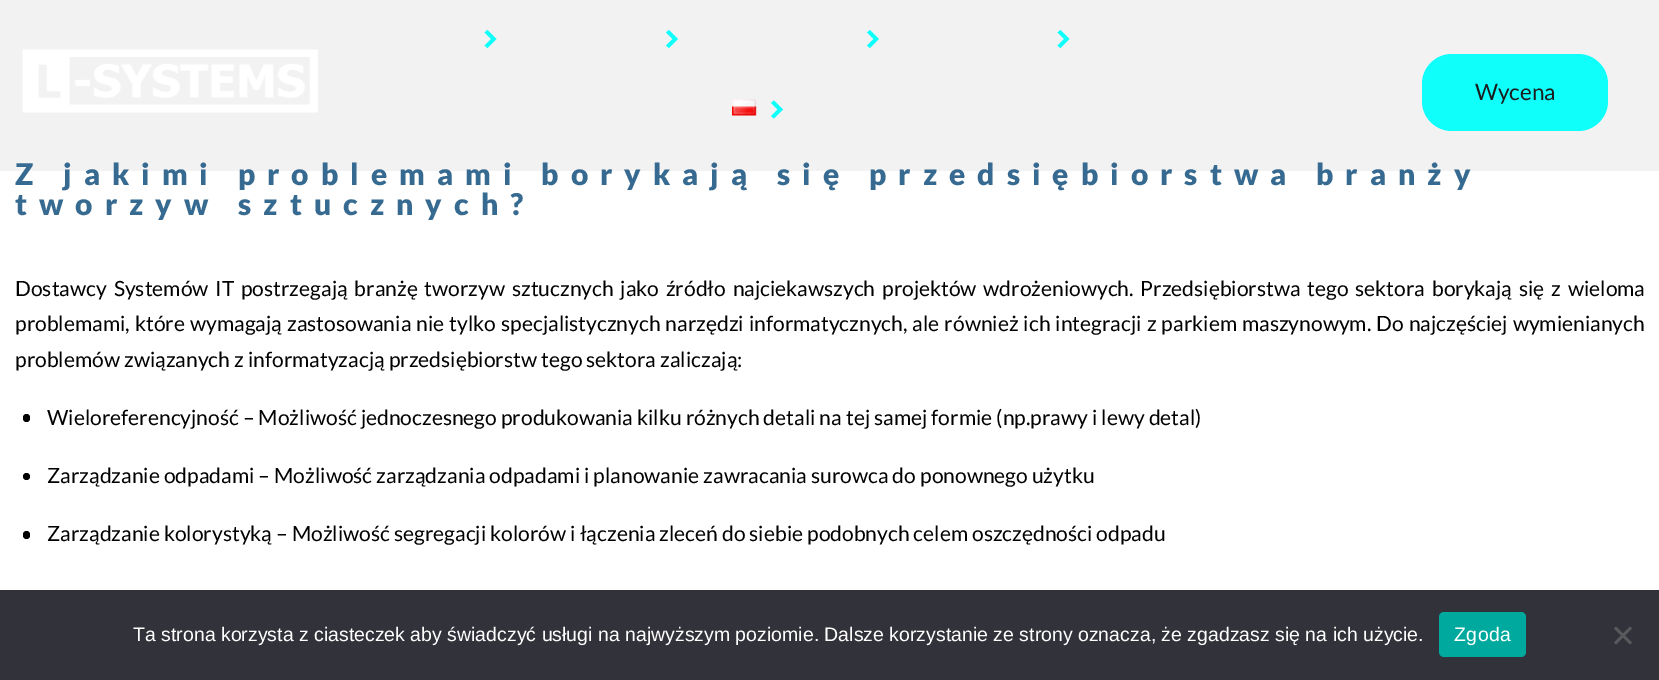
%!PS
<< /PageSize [1659 680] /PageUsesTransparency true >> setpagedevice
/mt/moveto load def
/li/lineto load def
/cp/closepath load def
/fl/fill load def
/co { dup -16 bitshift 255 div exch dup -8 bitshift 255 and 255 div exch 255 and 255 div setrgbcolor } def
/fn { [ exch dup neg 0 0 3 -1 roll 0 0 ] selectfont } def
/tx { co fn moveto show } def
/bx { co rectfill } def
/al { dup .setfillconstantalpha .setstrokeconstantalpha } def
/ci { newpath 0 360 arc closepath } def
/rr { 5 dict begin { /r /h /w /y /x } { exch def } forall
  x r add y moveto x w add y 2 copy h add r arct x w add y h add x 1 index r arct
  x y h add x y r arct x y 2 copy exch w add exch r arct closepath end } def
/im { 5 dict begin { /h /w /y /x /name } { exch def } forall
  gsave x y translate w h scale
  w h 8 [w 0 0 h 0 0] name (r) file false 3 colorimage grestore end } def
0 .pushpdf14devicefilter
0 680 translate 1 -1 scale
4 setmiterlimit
0 0 1659 680 16#FFFFFF bx
0.05 al
0 0 1659 171 16#000000 bx
1 al
(media/1.raw) 22 49 296 64 im
16#0FFFFB co
487.5 48 mt 496.5 39 li 487.5 30 li 484.5 32.5 li 491 39 li 484.5 45.5 li cp fl
669 48 mt 678 39 li 669 30 li 666 32.5 li 672.5 39 li 666 45.5 li cp fl
870 48 mt 879 39 li 870 30 li 867 32.5 li 873.5 39 li 867 45.5 li cp fl
1060.5 48 mt 1069.5 39 li 1060.5 30 li 1057.5 32.5 li 1064 39 li 1057.5 45.5 li cp fl
(media/2.raw) 732 99 25 17 im
774 118.5 mt 783 109.5 li 774 100.5 li 771 103 li 777.5 109.5 li 771 116 li cp fl
1422 54 186 77 30 rr fl
16#000000 co
23 414 7 8 3.5 rr fl
26.5 476.5 3.5 ci fl
23 531 7 8 3.5 rr fl
0 590 1659 90 16#32323A bx
16#00A99D co
1439 612 87 45 5 rr fl
16#59595D co
1630 626.5 mt 1632 628.5 li 1616 644.5 li 1614 642.5 li cp fl
1614 628.5 mt 1616 626.5 li 1632 642.5 li 1630 644.5 li cp fl
(Wycena) 1475 100 /Lato-Regular 22.5 16#1B1C1E tx
/Lato-Black 30 fn
16#376A90 co
15 185 mt 12 0 (Z jakimi problemami borykają się przedsiębiorstwa branży) ashow
15 215 mt 12 0 (tworzyw sztucznych?) ashow
/Lato-Regular 21 fn
16#000000 co
15 296 mt 2.75 0 32 (Dostawcy Systemów IT postrzegają branżę tworzyw sztucznych jako źródło najciekawszych projektów wdrożeniowych. Przedsiębiorstwa tego sektora borykają się z wieloma) widthshow
15 331 mt 1 0 32 (problemami, które wymagają zastosowania nie tylko specjalistycznych narzędzi informatycznych, ale również ich integracji z parkiem maszynowym. Do najczęściej wymienianych) widthshow
(problemów związanych z informatyzacją przedsiębiorstw tego sektora zaliczają:) 15 367 /Lato-Regular 21 16#000000 tx
(Wieloreferencyjność – Możliwość jednoczesnego produkowania kilku różnych detali na tej samej formie \(np.prawy i lewy detal\)) 47 425 /Lato-Regular 21 16#000000 tx
(Zarządzanie odpadami – Możliwość zarządzania odpadami i planowanie zawracania surowca do ponownego użytku) 47 483 /Lato-Regular 21 16#000000 tx
(Zarządzanie kolorystyką – Możliwość segregacji kolorów i łączenia zleceń do siebie podobnych celem oszczędności odpadu) 47 541 /Lato-Regular 21 16#000000 tx
(Ta strona korzysta z ciasteczek aby świadczyć usługi na najwyższym poziomie. Dalsze korzystanie ze strony oznacza, że zgadzasz się na ich użycie.) 133 641 /LiberationSans-Regular 19.5 16#FFFFFF tx
1454 641 mt .5 0 (Zgoda) ashow
.poppdf14devicefilter showpage
